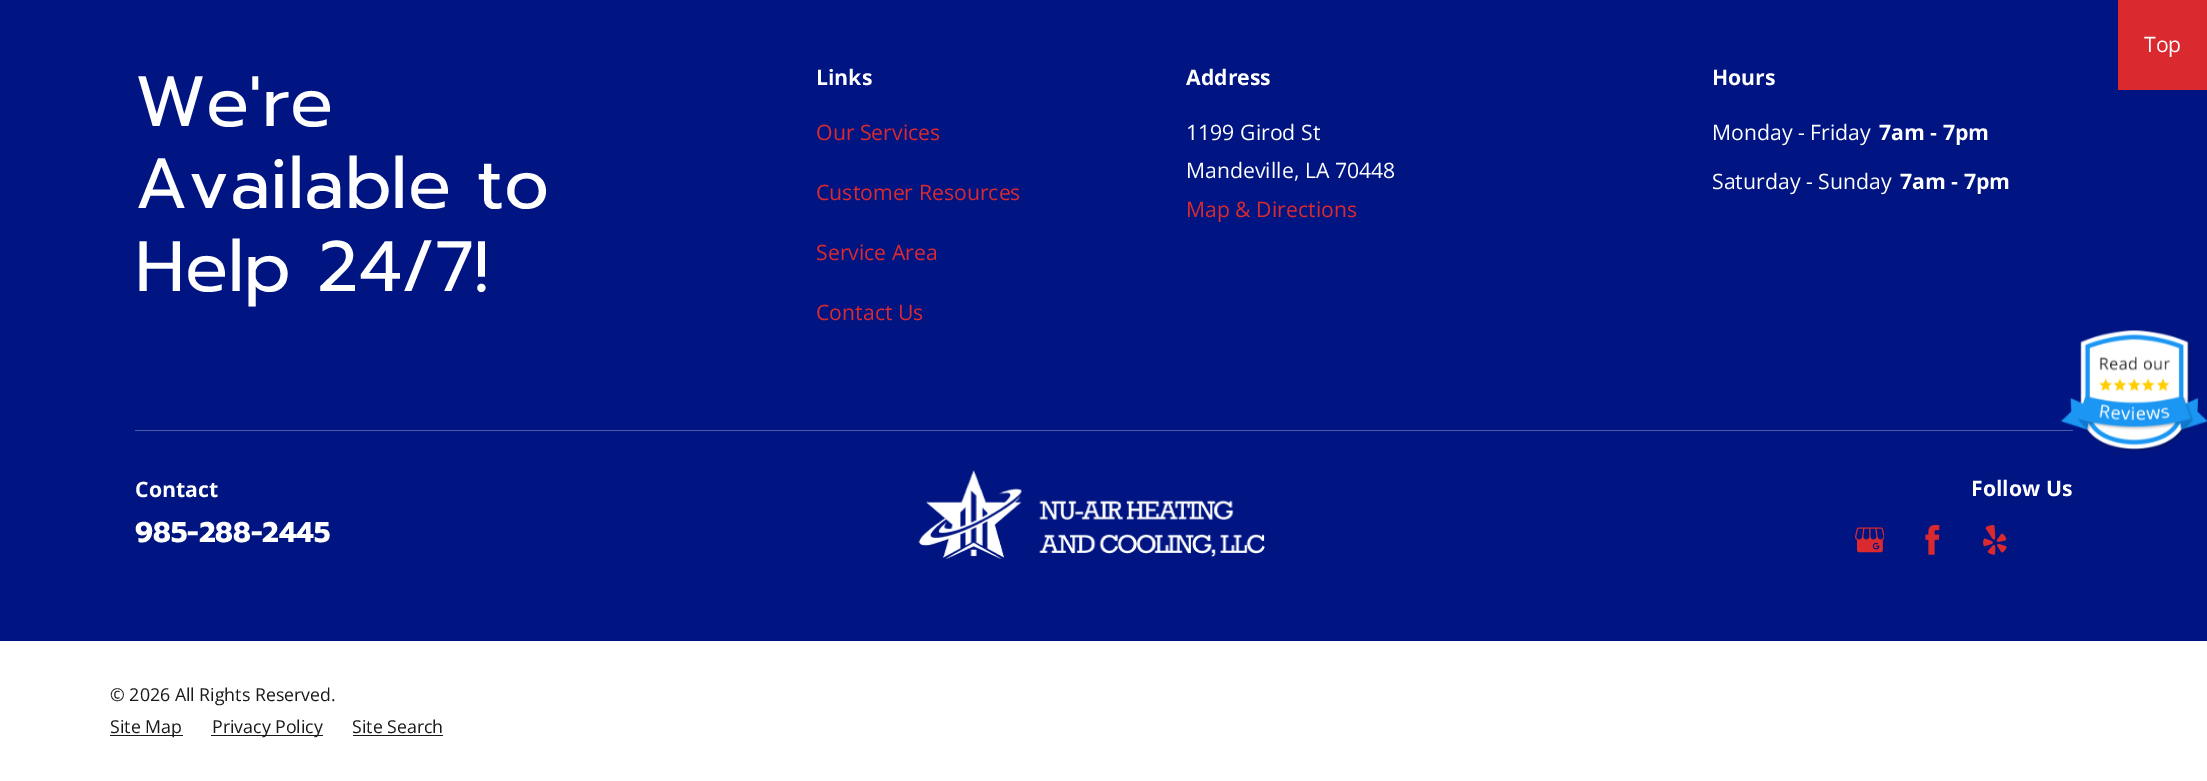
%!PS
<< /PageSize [2207 781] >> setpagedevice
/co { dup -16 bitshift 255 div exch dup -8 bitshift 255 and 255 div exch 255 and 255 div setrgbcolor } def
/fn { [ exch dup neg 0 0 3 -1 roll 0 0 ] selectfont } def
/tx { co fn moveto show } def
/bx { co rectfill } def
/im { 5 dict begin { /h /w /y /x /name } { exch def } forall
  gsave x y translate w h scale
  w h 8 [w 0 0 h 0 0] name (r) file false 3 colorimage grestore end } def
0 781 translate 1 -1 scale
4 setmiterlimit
0 0 2207 781 16#FFFFFF bx
0 0 2207 641 16#001582 bx
2118 0 89 90 16#DA292F bx
135 430 1938 1 16#4D5BA8 bx
(media/1.raw) 918 470 347 89 im
(media/2.raw) 1855 527 29 26 im
(media/3.raw) 1925 525 15 30 im
(media/4.raw) 1983 525 24 30 im
110 735 73 1 16#191919 bx
211 735 112 1 16#191919 bx
353 735 90 1 16#191919 bx
(media/5.raw) 2061 330 146 122 im
(Top) 2144 52 /OpenSans-Regular 21.25 16#FFFFFF tx
(We're) 135 126 /Prompt-Regular 71 16#FFFFFF tx
(Available to) 135 208 /Prompt-Regular 71 16#FFFFFF tx
(Help 24/7!) 135 291 /Prompt-Regular 71 16#FFFFFF tx
(Links) 816 85 /OpenSans-Bold 21.25 16#FFFFFF tx
(Our Services) 816 140 /OpenSans-Regular 21.25 16#DA292F tx
(Customer Resources) 816 200 /OpenSans-Regular 21.25 16#DA292F tx
(Service Area) 816 260 /OpenSans-Regular 21.25 16#DA292F tx
(Contact Us) 816 320 /OpenSans-Regular 21.25 16#DA292F tx
(Address) 1186 85 /OpenSans-Bold 21.25 16#FFFFFF tx
(1199 Girod St) 1186 140 /OpenSans-Regular 21.25 16#FFFFFF tx
(Mandeville, LA 70448) 1186 178 /OpenSans-Regular 21.25 16#FFFFFF tx
(Map & Directions) 1186 217 /OpenSans-Regular 21.25 16#DA292F tx
(Hours) 1712 85 /OpenSans-Bold 21.25 16#FFFFFF tx
(Monday - Friday) 1712 140 /OpenSans-Regular 21.25 16#FFFFFF tx
(7am - 7pm) 1879 140 /OpenSans-Bold 21.25 16#FFFFFF tx
(Saturday - Sunday) 1712 189 /OpenSans-Regular 21.25 16#FFFFFF tx
(7am - 7pm) 1900 189 /OpenSans-Bold 21.25 16#FFFFFF tx
(Contact) 135 497 /OpenSans-Bold 21.25 16#FFFFFF tx
(985-288-2445) 135 542 /Prompt-Bold 28.5 16#FFFFFF tx
(Follow Us) 1971 496 /OpenSans-Bold 21.25 16#FFFFFF tx
(© 2026 All Rights Reserved.) 110 701 /OpenSans-Regular 17.75 16#191919 tx
(Site Map) 110 733 /OpenSans-Regular 17.75 16#191919 tx
(Privacy Policy) 212 733 /OpenSans-Regular 17.75 16#191919 tx
(Site Search) 352 733 /OpenSans-Regular 17.75 16#191919 tx
showpage
